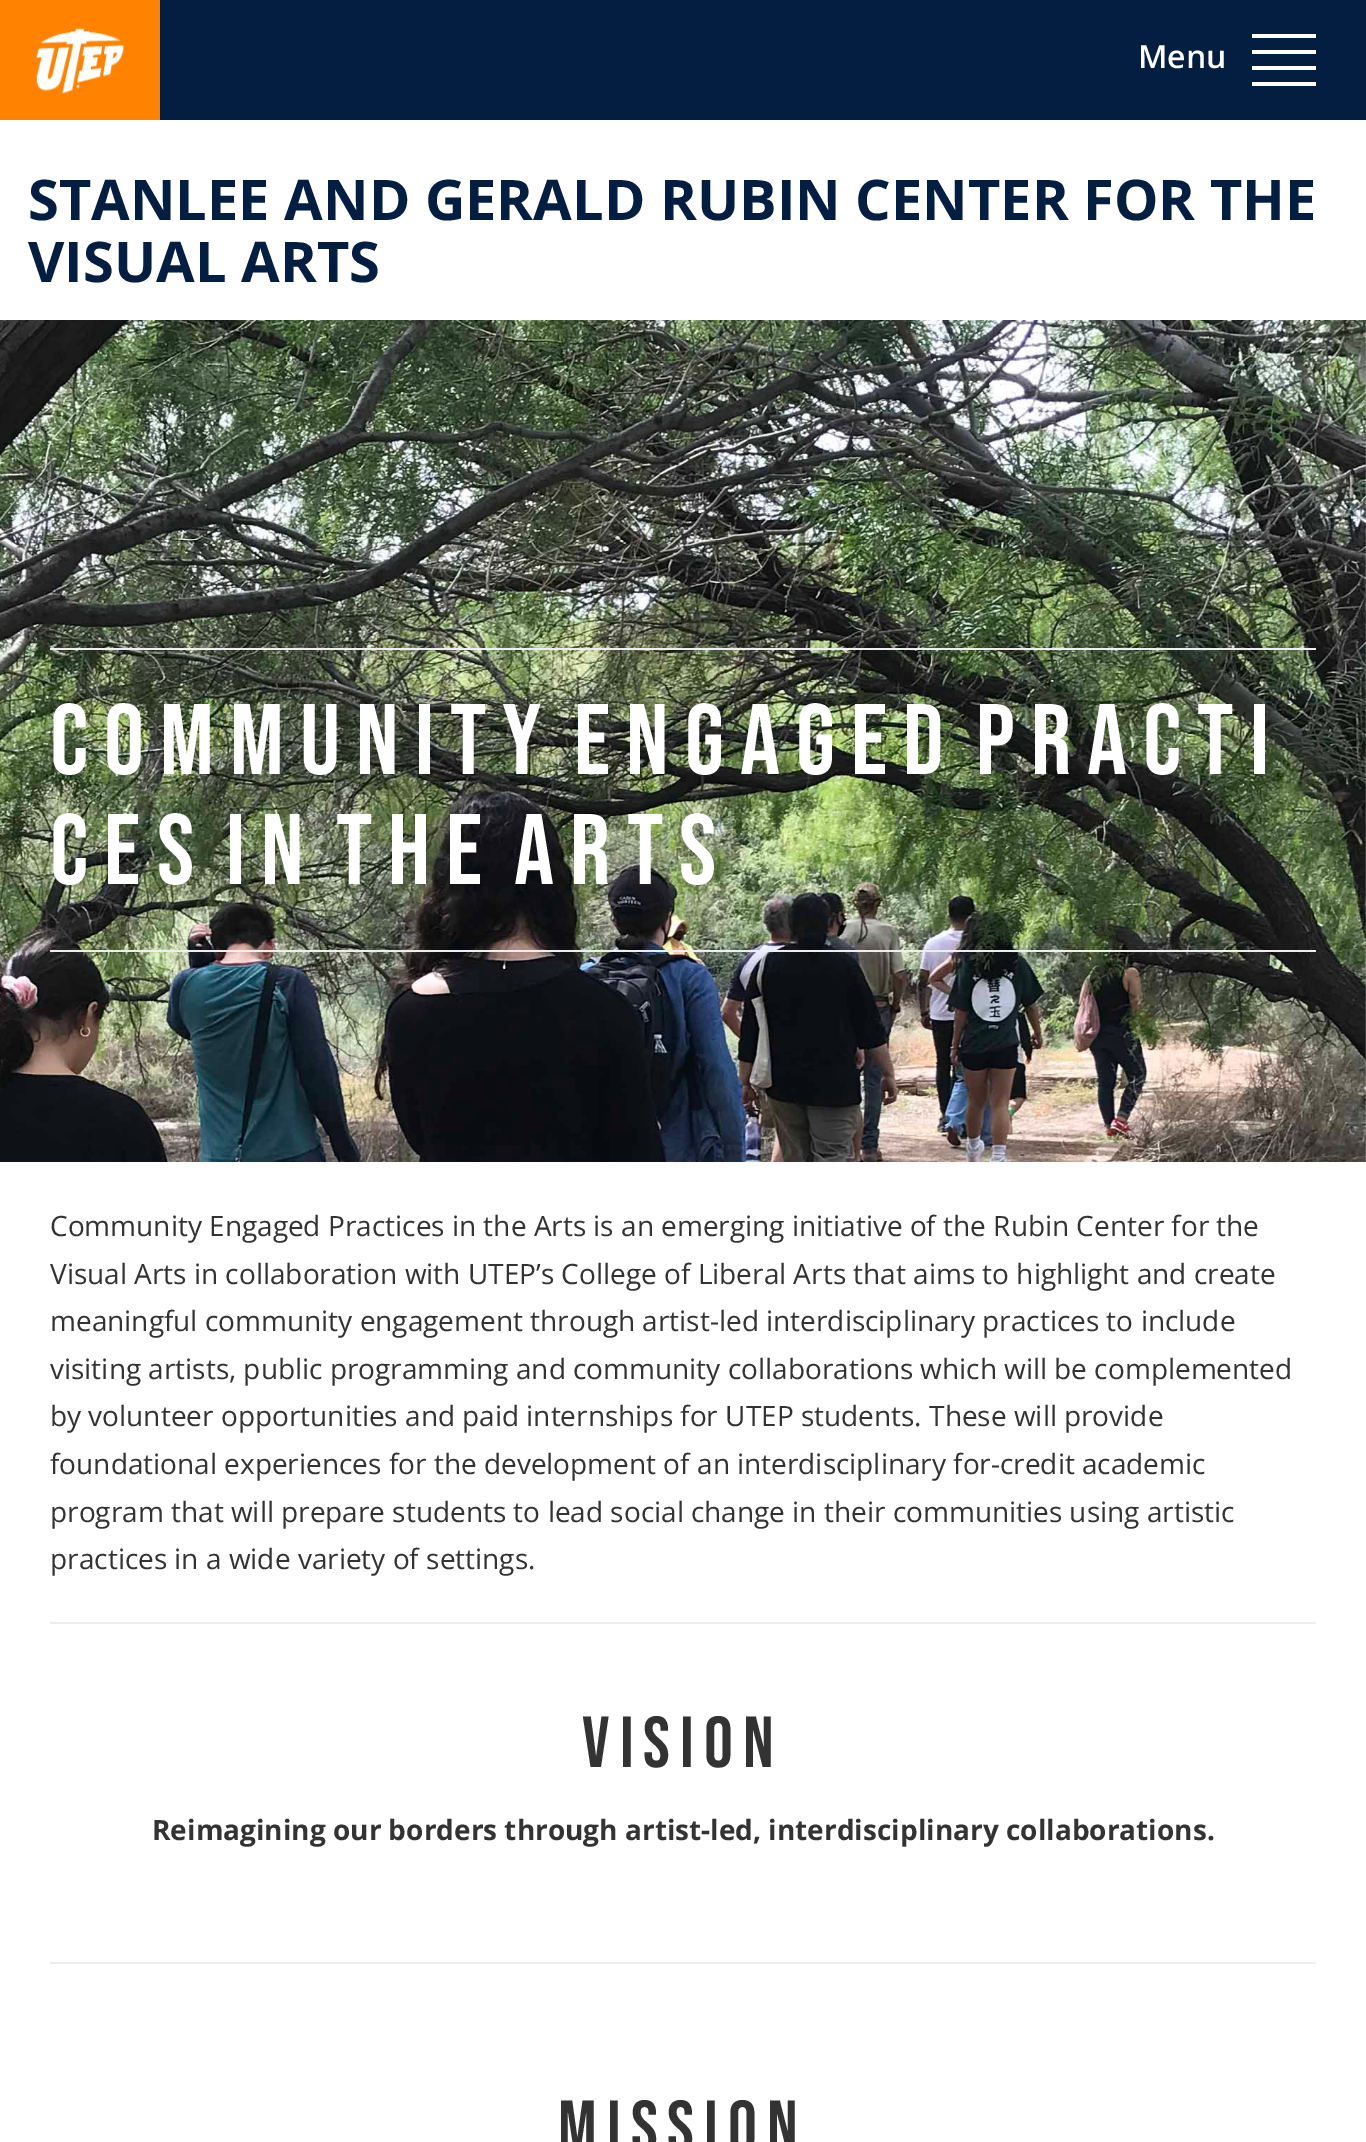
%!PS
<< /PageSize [1366 2142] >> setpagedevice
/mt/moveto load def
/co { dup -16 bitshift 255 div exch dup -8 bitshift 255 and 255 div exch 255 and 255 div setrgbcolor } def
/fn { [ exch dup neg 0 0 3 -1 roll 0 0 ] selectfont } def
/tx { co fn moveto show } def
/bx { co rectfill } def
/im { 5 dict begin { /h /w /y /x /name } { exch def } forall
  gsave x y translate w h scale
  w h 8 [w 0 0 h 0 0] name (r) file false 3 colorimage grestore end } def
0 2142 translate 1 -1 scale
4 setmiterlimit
0 0 1366 2142 16#FFFFFF bx
0 0 160 120 16#FF8200 bx
(media/1.raw) 36 28 89 66 im
160 0 1206 120 16#041E42 bx
1252 34 64 4 16#FFFFFF bx
1252 50 64 4 16#FFFFFF bx
1252 66 64 4 16#FFFFFF bx
1252 82 64 4 16#FFFFFF bx
(media/2.raw) 0 320 1366 842 im
50 648 1266 2 16#EEEEEE bx
50 950 1266 2 16#EEEEEE bx
50 1622 1266 2 16#EEEEEE bx
50 1962 1266 2 16#EEEEEE bx
(Menu) 1138 68 /OpenSans-SemiBold 32 16#FFFFFF tx
(STANLEE AND GERALD RUBIN CENTER FOR THE) 28 220 /OpenSans-Bold 56 16#041E42 tx
(VISUAL ARTS) 28 282 /OpenSans-Bold 56 16#041E42 tx
(C O M M U N I T Y  E N G A G E D  P R A C T I) 50 774 /BebasNeue-Regular 100 16#FFFFFF tx
(C E S  I N  T H E  A R T S) 50 884 /BebasNeue-Regular 100 16#FFFFFF tx
(Community Engaged Practices in the Arts is an emerging initiative of the Rubin Center for the) 50 1236 /OpenSans-Regular 28 16#333333 tx
(Visual Arts in collaboration with UTEP’s College of Liberal Arts that aims to highlight and create) 50 1284 /OpenSans-Regular 28 16#333333 tx
(meaningful community engagement through artist-led interdisciplinary practices to include) 50 1331 /OpenSans-Regular 28 16#333333 tx
(visiting artists, public programming and community collaborations which will be complemented) 50 1379 /OpenSans-Regular 28 16#333333 tx
(by volunteer opportunities and paid internships for UTEP students. These will provide) 50 1426 /OpenSans-Regular 28 16#333333 tx
(foundational experiences for the development of an interdisciplinary for-credit academic) 50 1474 /OpenSans-Regular 28 16#333333 tx
(program that will prepare students to lead social change in their communities using artistic) 50 1522 /OpenSans-Regular 28 16#333333 tx
(practices in a wide variety of settings.) 50 1569 /OpenSans-Regular 28 16#333333 tx
/BebasNeue-Regular 72 fn
582 1767 mt 10 0 (Vision) ashow
(Reimagining our borders through artist-led, interdisciplinary collaborations.) 152 1840 /OpenSans-Bold 28 16#333333 tx
/BebasNeue-Regular 72 fn
558 2151 mt 10 0 (Mission) ashow
showpage
